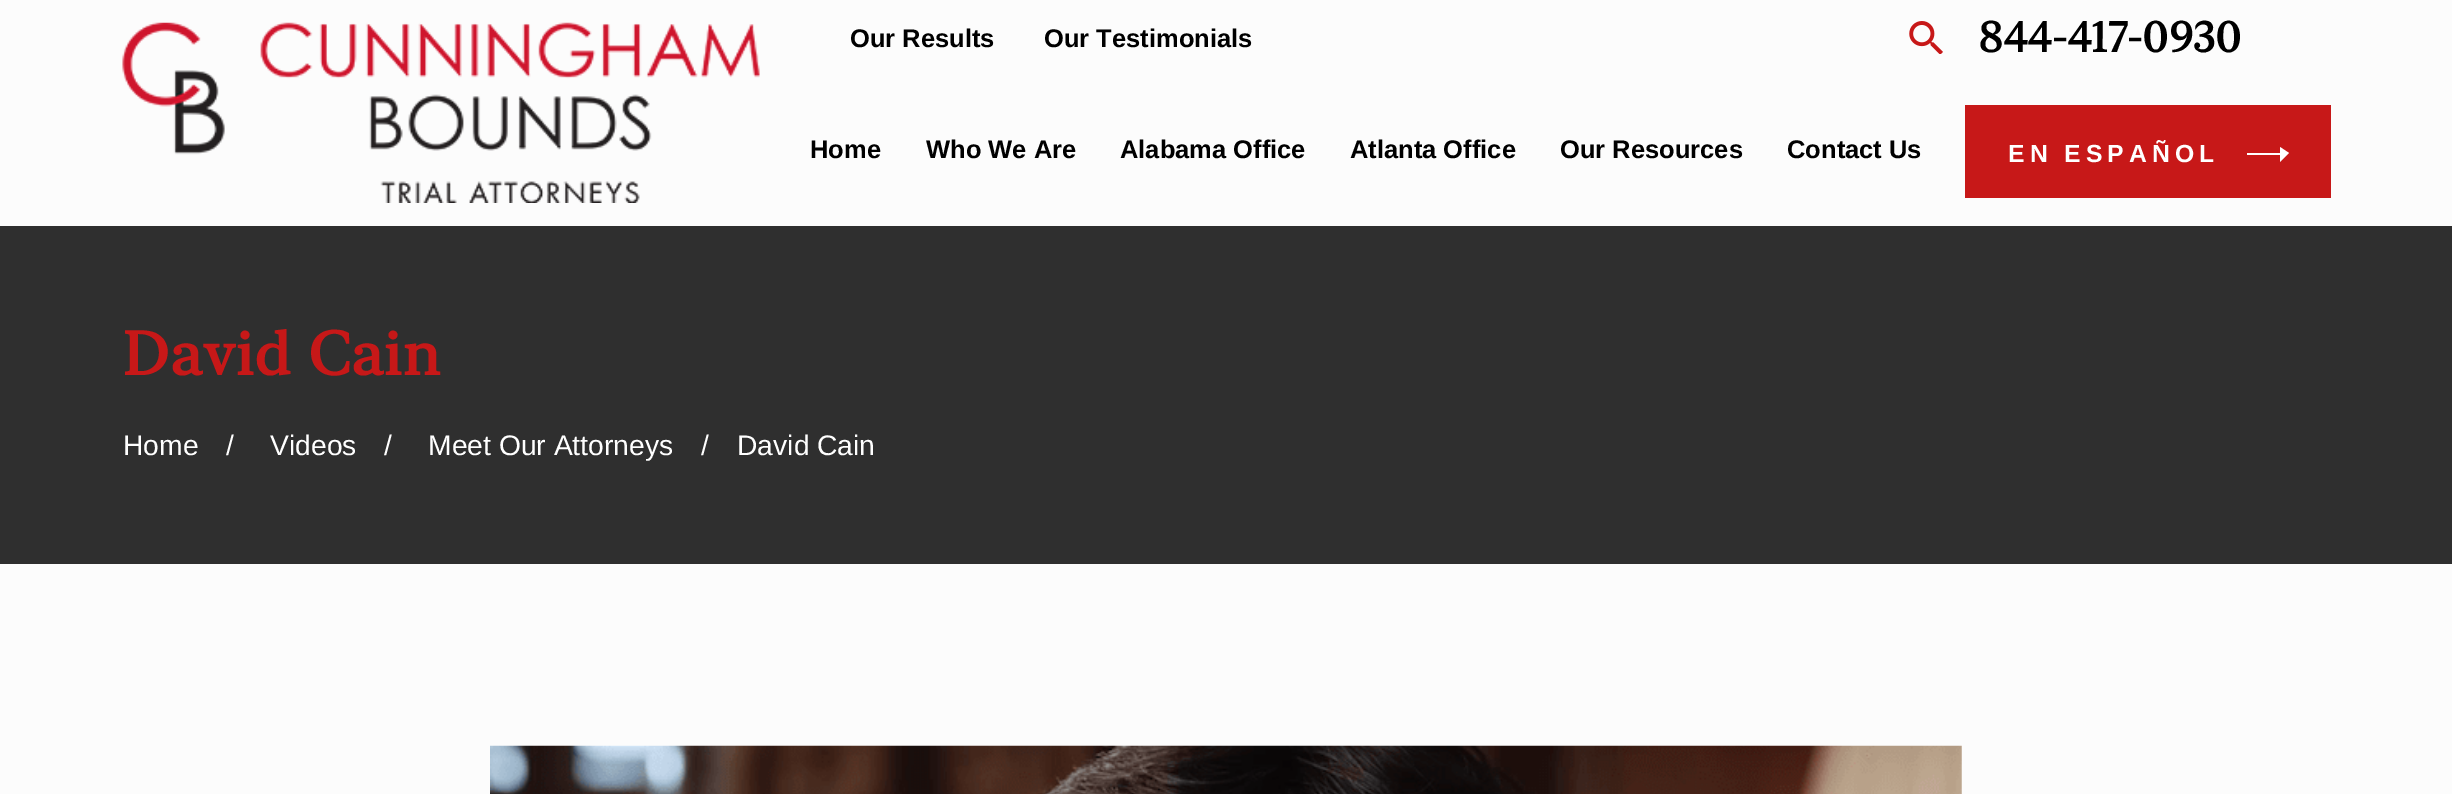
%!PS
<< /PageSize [2452 794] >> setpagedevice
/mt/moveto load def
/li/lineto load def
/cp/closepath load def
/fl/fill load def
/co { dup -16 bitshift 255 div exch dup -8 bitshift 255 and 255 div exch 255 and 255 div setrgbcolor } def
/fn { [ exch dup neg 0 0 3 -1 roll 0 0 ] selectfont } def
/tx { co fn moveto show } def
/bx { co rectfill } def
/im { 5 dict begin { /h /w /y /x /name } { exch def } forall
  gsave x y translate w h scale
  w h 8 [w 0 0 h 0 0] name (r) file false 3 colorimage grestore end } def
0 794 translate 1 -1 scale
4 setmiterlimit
0 0 2452 794 16#2F2F2F bx
0 0 2452 226 16#FCFCFC bx
(media/1.raw) 122 22 638 181 im
(media/2.raw) 1909 21 34 33 im
1965 105 366 93 16#C71818 bx
16#FFFFFF co
2280 147 mt 2289 153 li 2280 162 li 2280 155 li 2247 155 li 2247 153 li 2280 153 li cp fl
0 564 2452 230 16#FCFCFC bx
(media/3.raw) 490 745 1472 49 im
(Our Results) 850 47 /LiberationSans-Bold 25.5 16#000000 tx
(Our Testimonials) 1044 47 /LiberationSans-Bold 25.5 16#000000 tx
(844-417-0930) 1978 52 /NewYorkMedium-Bold 42.25 16#000000 tx
(Home) 810 158 /LiberationSans-Bold 25.5 16#000000 tx
(Who We Are) 926 158 /LiberationSans-Bold 25.5 16#000000 tx
(Alabama Office) 1120 158 /LiberationSans-Bold 25.5 16#000000 tx
(Atlanta Office) 1350 158 /LiberationSans-Bold 25.5 16#000000 tx
(Our Resources) 1560 158 /LiberationSans-Bold 25.5 16#000000 tx
(Contact Us) 1787 158 /LiberationSans-Bold 25.5 16#000000 tx
/LiberationSans-Bold 24.75 fn
16#FFFFFF co
2008 162 mt 5 0 (EN ESPAÑOL) ashow
/NewYorkMedium-Bold 61 fn
16#C71818 co
123 375 mt 1.25 0 (David Cain) ashow
(Home) 123 455 /LiberationSans-Regular 28.25 16#FFFFFF tx
(/) 226 455 /LiberationSans-Regular 28.25 16#FFFFFF tx
(Videos) 270 455 /LiberationSans-Regular 28.25 16#FFFFFF tx
(/) 384 455 /LiberationSans-Regular 28.25 16#FFFFFF tx
(Meet Our Attorneys) 428 455 /LiberationSans-Regular 28.25 16#FFFFFF tx
(/) 701 455 /LiberationSans-Regular 28.25 16#FFFFFF tx
(David Cain) 737 455 /LiberationSans-Regular 28.25 16#FFFFFF tx
showpage
